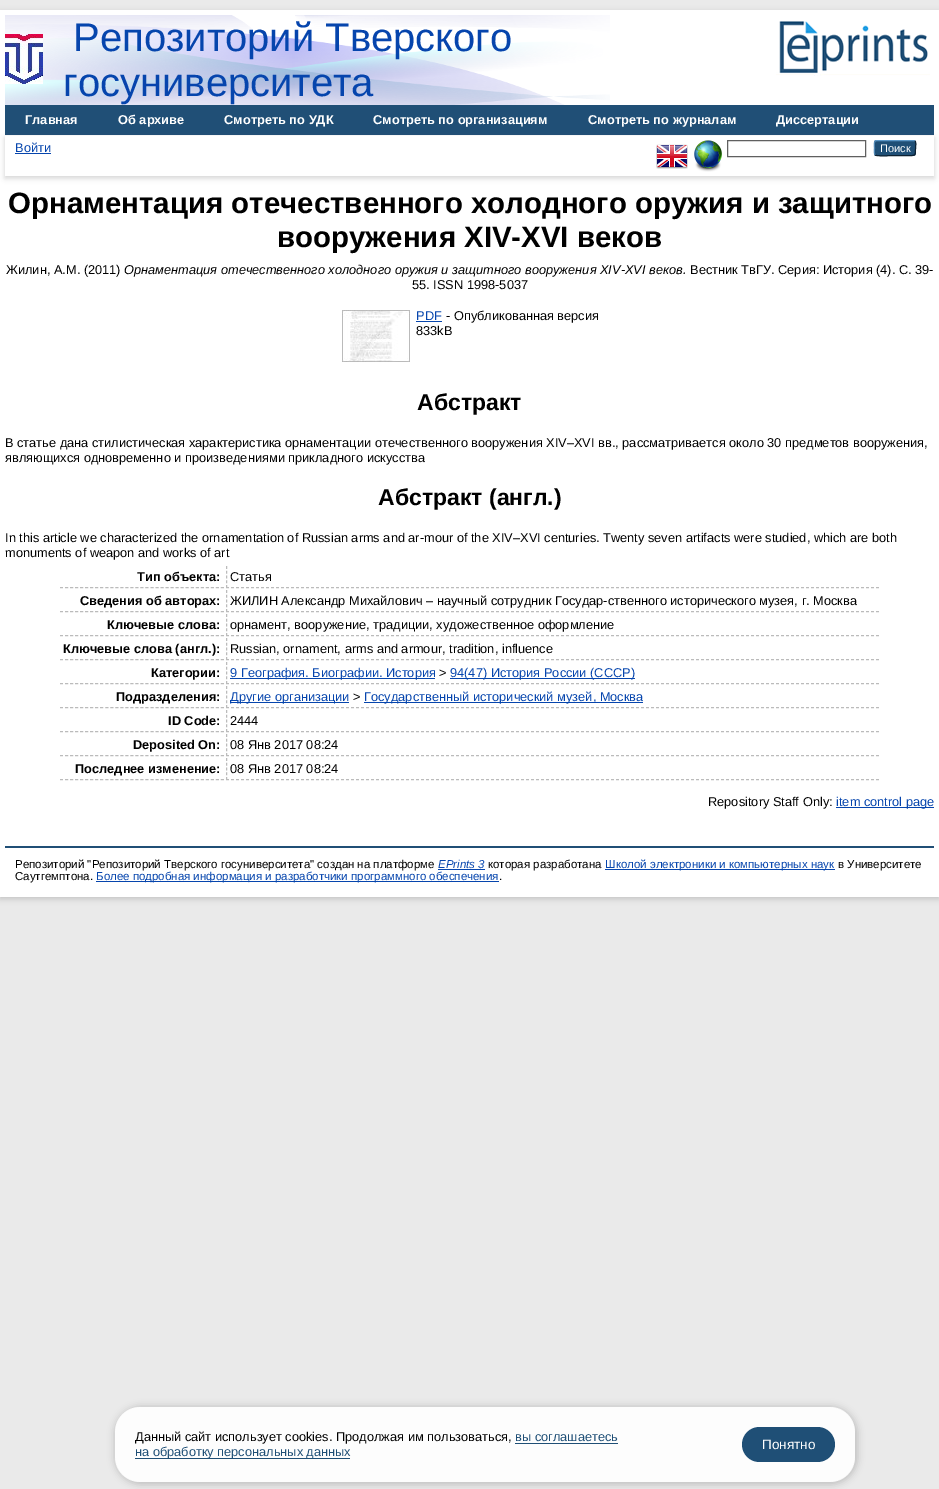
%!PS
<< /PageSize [939 1489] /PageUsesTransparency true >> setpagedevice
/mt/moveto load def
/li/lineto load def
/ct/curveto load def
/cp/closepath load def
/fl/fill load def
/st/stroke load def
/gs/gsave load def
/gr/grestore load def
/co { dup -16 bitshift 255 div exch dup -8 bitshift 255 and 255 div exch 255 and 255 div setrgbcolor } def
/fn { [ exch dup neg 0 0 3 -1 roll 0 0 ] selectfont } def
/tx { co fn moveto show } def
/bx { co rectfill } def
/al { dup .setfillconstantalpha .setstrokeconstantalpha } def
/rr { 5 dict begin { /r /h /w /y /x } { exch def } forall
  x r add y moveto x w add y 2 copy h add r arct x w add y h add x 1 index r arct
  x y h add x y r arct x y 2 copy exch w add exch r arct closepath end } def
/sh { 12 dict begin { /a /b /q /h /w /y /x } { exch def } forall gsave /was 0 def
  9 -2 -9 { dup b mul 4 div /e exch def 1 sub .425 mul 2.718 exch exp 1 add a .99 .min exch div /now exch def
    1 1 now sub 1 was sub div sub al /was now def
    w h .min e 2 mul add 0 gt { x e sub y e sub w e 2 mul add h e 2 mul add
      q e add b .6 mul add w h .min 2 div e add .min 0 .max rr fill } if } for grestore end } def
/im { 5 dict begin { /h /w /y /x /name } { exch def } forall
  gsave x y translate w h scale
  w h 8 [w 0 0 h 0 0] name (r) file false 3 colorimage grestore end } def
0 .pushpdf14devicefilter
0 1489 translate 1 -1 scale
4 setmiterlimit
0 0 939 1489 16#EAEAEA bx
16#646464 co
0 12 939 887 0 3 .3 sh
0 10 939 887 16#FFFFFF bx
(media/1.raw) 5 15 605 90 im
(media/2.raw) 5 34 38 50 im
(media/3.raw) 776 21 154 55 im
5 105 929 30 16#204F76 bx
16#646464 co
5 138 929 40 0 3 .3 sh
5 136 929 40 16#FFFFFF bx
15 153 36 1 16#0645AD bx
(media/4.raw) 656 144 32 25 im
(media/5.raw) 694 140 28 32 im
16#606060 co
727.5 140.5 138 16 rectstroke
16#1F4F76 co
874 140 42 16 3 rr fl
16#5B97C7 co
875 141 mt 877 140.5 li 913 140.5 li 915 141 li st
16#0D2131 co
915 141 mt 916.5 143 915.5 146 915.5 148 ct 915.5 156.5 916 155.5 907 155.5 ct 895 155.5 li 892 155.5 877 156.5 875 155 ct st
16#5287B3 co
875 155 mt 874 153.5 874.5 149.5 874.5 148 ct 874.5 146.5 874 142.5 875 141 ct st
(media/6.raw) 342 310 68 52 im
416 321 26 1 16#0645AD bx
16#BBBBBB co
[3 2.03] 0 setdash
60 587.5 mt 224 587.5 li st
[3 2] 0 setdash
226 587.5 mt 879 587.5 li st
[3 1.75] 0 setdash
226.5 566 mt 226.5 588 li st
[3 2.03] 0 setdash
60 611.5 mt 224 611.5 li st
[3 2] 0 setdash
226 611.5 mt 879 611.5 li st
[3 1.75] 0 setdash
226.5 590 mt 226.5 612 li st
[3 2.03] 0 setdash
60 635.5 mt 224 635.5 li st
[3 2] 0 setdash
226 635.5 mt 879 635.5 li st
[3 1.75] 0 setdash
226.5 614 mt 226.5 636 li st
[3 2.03] 0 setdash
60 659.5 mt 224 659.5 li st
[3 2] 0 setdash
226 659.5 mt 879 659.5 li st
[3 1.75] 0 setdash
226.5 638 mt 226.5 660 li st
[3 2.03] 0 setdash
60 683.5 mt 224 683.5 li st
[3 2] 0 setdash
226 683.5 mt 879 683.5 li st
[3 1.75] 0 setdash
226.5 662 mt 226.5 684 li st
230 678 205 1 16#0645AD bx
450 678 185 1 16#0645AD bx
16#BBBBBB co
[3 2.03] 0 setdash
60 707.5 mt 224 707.5 li st
[3 2] 0 setdash
226 707.5 mt 879 707.5 li st
[3 1.75] 0 setdash
226.5 686 mt 226.5 708 li st
230 702 119 1 16#0645AD bx
364 702 279 1 16#0645AD bx
16#BBBBBB co
[3 2.03] 0 setdash
60 731.5 mt 224 731.5 li st
[3 2] 0 setdash
226 731.5 mt 879 731.5 li st
[3 1.75] 0 setdash
226.5 710 mt 226.5 732 li st
[3 2.03] 0 setdash
60 755.5 mt 224 755.5 li st
[3 2] 0 setdash
226 755.5 mt 879 755.5 li st
[3 1.75] 0 setdash
226.5 734 mt 226.5 756 li st
[3 2.03] 0 setdash
60 779.5 mt 224 779.5 li st
[3 2] 0 setdash
226 779.5 mt 879 779.5 li st
[3 1.75] 0 setdash
226.5 758 mt 226.5 780 li st
836 807 98 1 16#0645AD bx
5 846 929 2 16#204F76 bx
438 869 47 1 16#0645AD bx
605 869 230 1 16#0645AD bx
96 881 403 1 16#0645AD bx
gs
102 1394 mt 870 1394 li 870 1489 li 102 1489 li cp 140 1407 mt 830 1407 li 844 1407 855 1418 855 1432 ct 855 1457 li 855 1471 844 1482 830 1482 ct 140 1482 li 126 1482 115 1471 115 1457 ct 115 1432 li 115 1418 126 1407 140 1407 ct cp eoclip newpath
16#000000 co
114 1406 744 79 27 3.5 .16 sh
gr
0.9 al
16#FFFFFF co
115 1407 740 75 25 rr fl
1 al
515 1443 103 1 16#1F4F76 bx
135 1458 215 1 16#1F4F76 bx
742 1427 93 35 17.5 rr fl
(Репозиторий Тверского) 73 51 /LiberationSans-Regular 40 16#0645AD tx
(госуниверситета) 63 96 /LiberationSans-Regular 40 16#0645AD tx
(Главная) 25 124 /LiberationSans-Bold 12.8 16#FFFFFF tx
(Об архиве) 118 124 /LiberationSans-Bold 12.8 16#FFFFFF tx
(Смотреть по УДК) 224 124 /LiberationSans-Bold 12.8 16#FFFFFF tx
(Смотреть по организациям) 373 124 /LiberationSans-Bold 12.8 16#FFFFFF tx
(Смотреть по журналам) 588 124 /LiberationSans-Bold 12.8 16#FFFFFF tx
(Диссертации) 776 124 /LiberationSans-Bold 12.8 16#FFFFFF tx
(Войти) 15 152 /LiberationSans-Regular 12.8 16#0645AD tx
(Поиск) 880 152 /LiberationSans-Regular 11 16#FFFFFF tx
(Орнаментация отечественного холодного оружия и защитного) 8 213 /LiberationSans-Bold 29.45 16#000000 tx
(вооружения XIV-XVI веков) 277 247 /LiberationSans-Bold 29.45 16#000000 tx
(Жилин, А.М. \(2011\)) 6 274 /LiberationSans-Regular 12.8 16#000000 tx
(Орнаментация отечественного холодного оружия и защитного вооружения XIV-XVI веков.) 124 274 /LiberationSans-Italic 12.8 16#000000 tx
(Вестник ТвГУ. Серия: История \(4\). С. 39-) 690 274 /LiberationSans-Regular 12.8 16#000000 tx
(55. ISSN 1998-5037) 412 289 /LiberationSans-Regular 12.8 16#000000 tx
(PDF) 416 320 /LiberationSans-Regular 12.8 16#0645AD tx
(- Опубликованная версия) 446 320 /LiberationSans-Regular 12.8 16#000000 tx
(833kB) 416 335 /LiberationSans-Regular 12.8 16#000000 tx
(Абстракт) 417 410 /LiberationSans-Bold 23 16#000000 tx
(В статье дана стилистическая характеристика орнаментации отечественного вооружения XIV–XVI вв., рассматривается около 30 предметов вооружения,) 5 447 /LiberationSans-Regular 12.8 16#000000 tx
(являющихся одновременно и произведениями прикладного искусства) 5 462 /LiberationSans-Regular 12.8 16#000000 tx
(Абстракт \(англ.\)) 378 505 /LiberationSans-Bold 23 16#000000 tx
(In this article we characterized the ornamentation of Russian arms and ar-mour of the XIV–XVI centuries. Twenty seven artifacts were studied, which are both) 5 542 /LiberationSans-Regular 12.8 16#000000 tx
(monuments of weapon and works of art) 5 557 /LiberationSans-Regular 12.8 16#000000 tx
(Тип объекта:) 137 581 /LiberationSans-Bold 12.8 16#000000 tx
(Статья) 230 581 /LiberationSans-Regular 12.8 16#000000 tx
(Сведения об авторах:) 80 605 /LiberationSans-Bold 12.8 16#000000 tx
(ЖИЛИН Александр Михайлович – научный сотрудник Государ-ственного исторического музея, г. Москва) 230 605 /LiberationSans-Regular 12.8 16#000000 tx
(Ключевые слова:) 107 629 /LiberationSans-Bold 12.8 16#000000 tx
(орнамент, вооружение, традиции, художественное оформление) 230 629 /LiberationSans-Regular 12.8 16#000000 tx
(Ключевые слова \(англ.\):) 63 653 /LiberationSans-Bold 12.8 16#000000 tx
(Russian, ornament, arms and armour, tradition, influence) 230 653 /LiberationSans-Regular 12.8 16#000000 tx
(Категории:) 151 677 /LiberationSans-Bold 12.8 16#000000 tx
(9 География. Биографии. История) 230 677 /LiberationSans-Regular 12.8 16#0645AD tx
(>) 439 677 /LiberationSans-Regular 12.8 16#000000 tx
(94\(47\) История России \(СССР\)) 450 677 /LiberationSans-Regular 12.8 16#0645AD tx
(Подразделения:) 116 701 /LiberationSans-Bold 12.8 16#000000 tx
(Другие организации) 230 701 /LiberationSans-Regular 12.8 16#0645AD tx
(>) 353 701 /LiberationSans-Regular 12.8 16#000000 tx
(Государственный исторический музей, Москва) 364 701 /LiberationSans-Regular 12.8 16#0645AD tx
(ID Code:) 168 725 /LiberationSans-Bold 12.8 16#000000 tx
(2444) 230 725 /LiberationSans-Regular 12.8 16#000000 tx
(Deposited On:) 133 749 /LiberationSans-Bold 12.8 16#000000 tx
(08 Янв 2017 08:24) 230 749 /LiberationSans-Regular 12.8 16#000000 tx
(Последнее изменение:) 75 773 /LiberationSans-Bold 12.8 16#000000 tx
(08 Янв 2017 08:24) 230 773 /LiberationSans-Regular 12.8 16#000000 tx
(Repository Staff Only:) 708 806 /LiberationSans-Regular 12.8 16#000000 tx
(item control page) 836 806 /LiberationSans-Regular 12.8 16#0645AD tx
(Репозиторий "Репозиторий Тверского госуниверситета" создан на платформе) 15 868 /LiberationSans-Regular 11.5 16#000000 tx
(EPrints 3) 438 868 /LiberationSans-Italic 11.5 16#0645AD tx
(которая разработана) 488 868 /LiberationSans-Regular 11.5 16#000000 tx
(Школой электроники и компьютерных наук) 605 868 /LiberationSans-Regular 11.5 16#0645AD tx
(в Университете) 838 868 /LiberationSans-Regular 11.5 16#000000 tx
(Саутгемптона.) 15 880 /LiberationSans-Regular 11.5 16#000000 tx
(Более подробная информация и разработчики программного обеспечения) 96 880 /LiberationSans-Regular 11.5 16#0645AD tx
(.) 499 880 /LiberationSans-Regular 11.5 16#000000 tx
(Данный сайт использует cookies. Продолжая им пользоваться,) 135 1441 /LiberationSans-Regular 12.8 16#000000 tx
(вы соглашаетесь) 515 1441 /LiberationSans-Regular 12.8 16#1F4F76 tx
(на обработку персональных данных) 135 1456 /LiberationSans-Regular 12.8 16#1F4F76 tx
(Понятно) 762 1449 /LiberationSans-Regular 13.5 16#FFFFFF tx
.poppdf14devicefilter showpage
